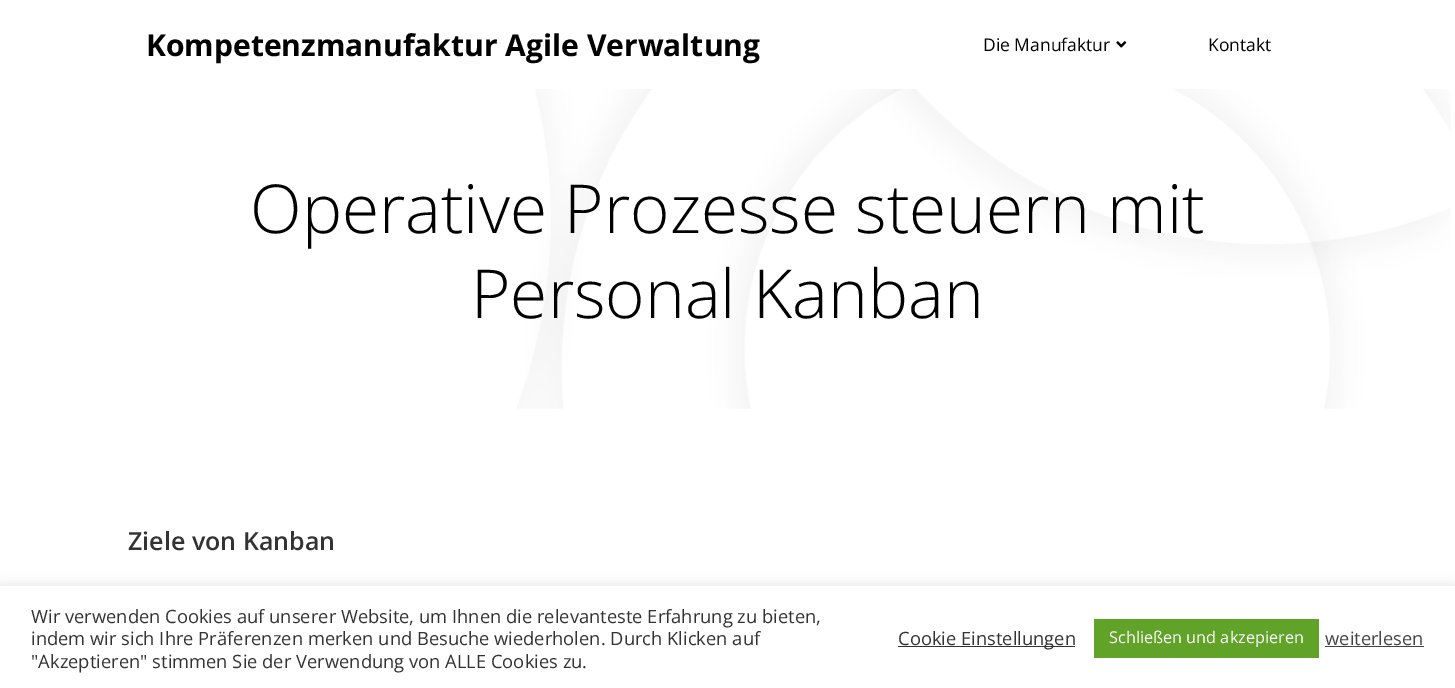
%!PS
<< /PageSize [1455 688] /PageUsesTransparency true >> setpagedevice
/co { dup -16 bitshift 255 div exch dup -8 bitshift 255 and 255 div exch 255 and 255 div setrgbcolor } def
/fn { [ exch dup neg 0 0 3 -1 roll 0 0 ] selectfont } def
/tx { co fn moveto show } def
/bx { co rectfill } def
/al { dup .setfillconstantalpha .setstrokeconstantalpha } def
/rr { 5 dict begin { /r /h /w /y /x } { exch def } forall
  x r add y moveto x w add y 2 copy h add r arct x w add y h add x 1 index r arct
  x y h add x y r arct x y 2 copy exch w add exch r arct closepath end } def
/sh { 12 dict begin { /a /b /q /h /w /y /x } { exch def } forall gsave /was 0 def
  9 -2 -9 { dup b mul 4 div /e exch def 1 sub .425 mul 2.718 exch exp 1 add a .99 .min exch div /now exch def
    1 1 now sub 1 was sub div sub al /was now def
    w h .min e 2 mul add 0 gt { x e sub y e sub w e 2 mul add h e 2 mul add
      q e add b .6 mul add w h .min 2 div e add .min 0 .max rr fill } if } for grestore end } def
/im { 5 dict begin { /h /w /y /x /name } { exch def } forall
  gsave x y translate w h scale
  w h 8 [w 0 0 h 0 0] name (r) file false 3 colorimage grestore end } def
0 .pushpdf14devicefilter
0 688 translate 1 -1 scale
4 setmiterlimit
0 0 1455 688 16#FFFFFF bx
(media/1.raw) 1116 41 11 7 im
(media/2.raw) 517 89 934 320 im
16#ACABAB co
0 585 1455 103 0 6 .3 sh
0 586 1455 102 16#FFFFFF bx
898 646 177 1 16#333333 bx
1094 619 225 39 16#61A229 bx
1325 646 99 1 16#444444 bx
(Kompetenzmanufaktur Agile Verwaltung) 146 56 /OpenSans-Bold 30 16#000000 tx
(Die Manufaktur) 983 51 /OpenSans-Regular 17.5 16#000000 tx
(Kontakt) 1208 51 /OpenSans-Regular 17.5 16#000000 tx
(Operative Prozesse steuern mit) 250 233 /OpenSans-Light 67.5 16#000000 tx
(Personal Kanban) 471 318 /OpenSans-Light 67.5 16#000000 tx
(Ziele von Kanban) 128 550 /OpenSans-SemiBold 25 16#333333 tx
(Wir verwenden Cookies auf unserer Website, um Ihnen die relevanteste Erfahrung zu bieten,) 31 623 /OpenSans-Regular 18.35 16#333333 tx
(indem wir sich Ihre Präferenzen merken und Besuche wiederholen. Durch Klicken auf) 31 645 /OpenSans-Regular 18.35 16#333333 tx
("Akzeptieren" stimmen Sie der Verwendung von ALLE Cookies zu.) 31 668 /OpenSans-Regular 18.35 16#333333 tx
(Cookie Einstellungen) 898 645 /OpenSans-Regular 18.35 16#333333 tx
(Schließen und akzepieren) 1109 643 /OpenSans-Regular 16.25 16#FFFFFF tx
(weiterlesen) 1325 645 /OpenSans-Regular 18.35 16#444444 tx
.poppdf14devicefilter showpage
